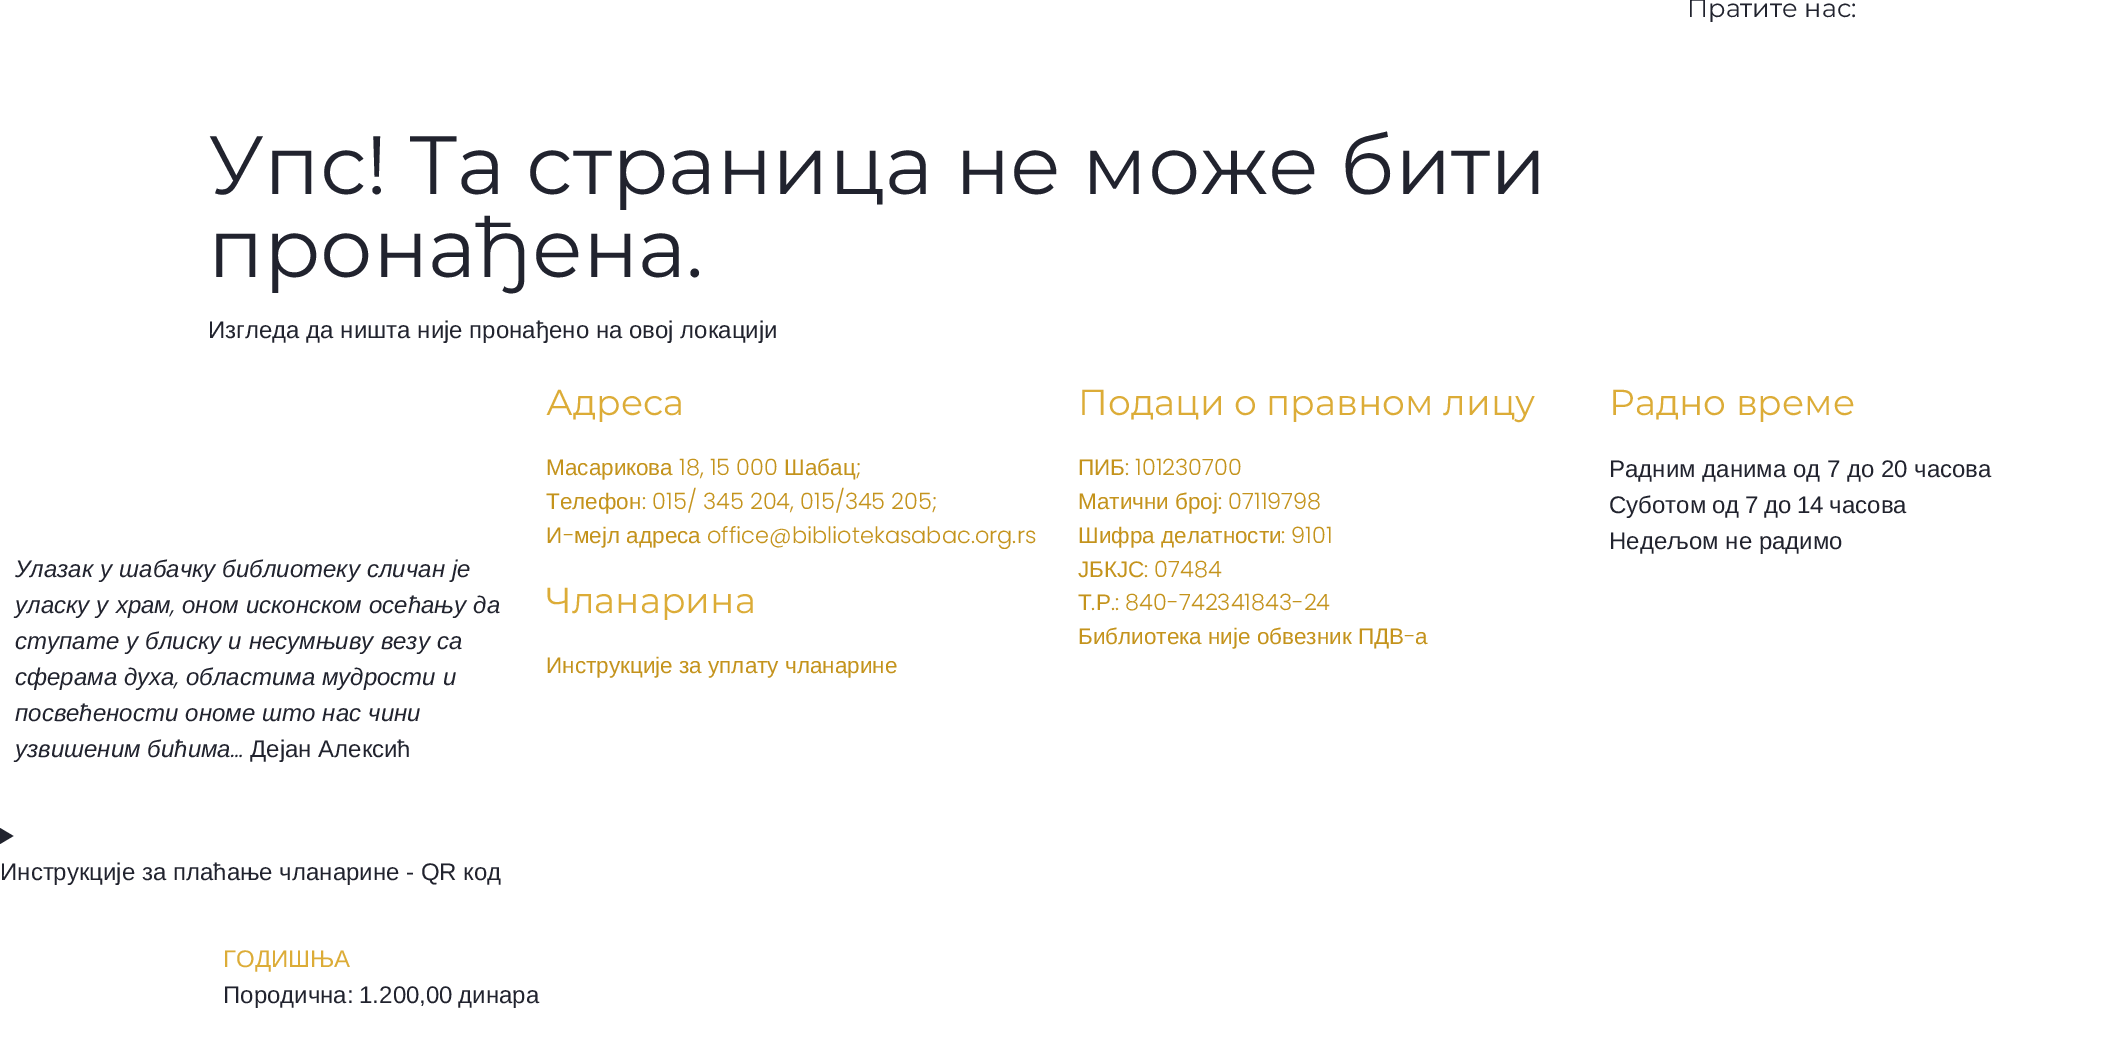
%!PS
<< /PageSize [2125 1043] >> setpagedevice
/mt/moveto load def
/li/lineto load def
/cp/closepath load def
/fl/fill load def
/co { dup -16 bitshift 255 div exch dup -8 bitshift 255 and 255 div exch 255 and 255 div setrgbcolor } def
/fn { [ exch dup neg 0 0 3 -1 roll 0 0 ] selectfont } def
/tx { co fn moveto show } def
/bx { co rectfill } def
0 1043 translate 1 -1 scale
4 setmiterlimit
0 0 2125 1043 16#FFFFFF bx
16#21232E co
0 828 mt 13.5 836 li 0 844 li cp fl
(Пратите нас:) 1687 17 /Montserrat-Regular 25.5 16#21232E tx
/Montserrat-Regular 82.5 fn
208 194 mt -.5 0 32 (Упс! Та страница не може бити) widthshow
(пронађена.) 208 277 /Montserrat-Regular 82.5 16#21232E tx
(Изгледа да ништа није пронађено на овој локацији) 208 338 /LiberationSans-Regular 24 16#21232E tx
(Адреса) 546 415 /Montserrat-Regular 36 16#DCAC37 tx
(Масарикова) 546 475 /LiberationSans-Regular 22.5 16#C4931C tx
(18, 15 000) 679 475 /Poppins-Light 22.5 16#C4931C tx
(Шабац) 784 475 /LiberationSans-Regular 22.5 16#C4931C tx
(;) 856 475 /Poppins-Light 22.5 16#C4931C tx
(Телефон) 546 509 /LiberationSans-Regular 22.5 16#C4931C tx
(: 015/ 345 204, 015/345 205;) 642 509 /Poppins-Light 22.5 16#C4931C tx
(И) 546 543 /LiberationSans-Regular 22.5 16#C4931C tx
(-) 563 543 /Poppins-Light 22.5 16#C4931C tx
(мејл адреса) 574 543 /LiberationSans-Regular 22.5 16#C4931C tx
(office@bibliotekasabac.org.rs) 707 543 /Poppins-Light 22.5 16#C4931C tx
(Чланарина) 546 613 /Montserrat-Regular 36 16#DCAC37 tx
(Инструкције за уплату чланарине) 546 673 /LiberationSans-Regular 22.5 16#C4931C tx
(Подаци о правном лицу) 1078 415 /Montserrat-Regular 36 16#DCAC37 tx
(ПИБ) 1078 475 /LiberationSans-Regular 22.5 16#C4931C tx
(: 101230700) 1125 475 /Poppins-Light 22.5 16#C4931C tx
(Матични број) 1078 509 /LiberationSans-Regular 22.5 16#C4931C tx
(: 07119798) 1218 509 /Poppins-Light 22.5 16#C4931C tx
(Шифра делатности) 1078 543 /LiberationSans-Regular 22.5 16#C4931C tx
(: 9101) 1281 543 /Poppins-Light 22.5 16#C4931C tx
(ЈБКЈС) 1078 577 /LiberationSans-Regular 22.5 16#C4931C tx
(: 07484) 1144 577 /Poppins-Light 22.5 16#C4931C tx
(Т) 1078 610 /LiberationSans-Regular 22.5 16#C4931C tx
(.) 1091 610 /Poppins-Light 22.5 16#C4931C tx
(Р) 1096 610 /LiberationSans-Regular 22.5 16#C4931C tx
(.: 840-742341843-24) 1111 610 /Poppins-Light 22.5 16#C4931C tx
(Библиотека није обвезник ПДВ) 1078 644 /LiberationSans-Regular 22.5 16#C4931C tx
(-) 1404 644 /Poppins-Light 22.5 16#C4931C tx
(а) 1415 644 /LiberationSans-Regular 22.5 16#C4931C tx
(Радно време) 1609 415 /Montserrat-Regular 36 16#DCAC37 tx
(Радним данима од 7 до 20 часова) 1609 477 /LiberationSans-Regular 24 16#21232E tx
1609 513 mt -1 0 32 (Суботом од 7 до 14 часова) widthshow
(Недељом не радимо) 1609 549 /LiberationSans-Regular 24 16#21232E tx
/LiberationSans-Italic 24 fn
15 577 mt .5 0 32 (Улазак у шабачку библиотеку сличан је) widthshow
15 613 mt .5 0 32 (уласку у храм) widthshow
182 613 mt .5 0 32 (оном исконском осећању да) widthshow
(,) 171 613 /Poppins-LightItalic 24 16#21232E tx
/LiberationSans-Italic 24 fn
15 649 mt .5 0 32 (ступате у блиску и несумњиву везу са) widthshow
15 685 mt .5 0 32 (сферама духа) widthshow
(,) 175 685 /Poppins-LightItalic 24 16#21232E tx
/LiberationSans-Italic 24 fn
186 685 mt .5 0 32 (областима мудрости и) widthshow
15 721 mt .5 0 32 (посвећености ономе што нас чини) widthshow
15 757 mt .5 0 32 (узвишеним бићима) widthshow
(…) 231 757 /Poppins-LightItalic 24 16#21232E tx
(Дејан Алексић) 250 757 /LiberationSans-Regular 24 16#21232E tx
(Инструкције за плаћање чланарине - QR код) 0 880 /LiberationSans-Regular 24 16#21232E tx
(ГОДИШЊА) 223 967 /LiberationSans-Regular 24 16#DCAC37 tx
16#21232E co
223 1003 mt -1 0 32 (Породична: 1.200,00 динара) widthshow
showpage
